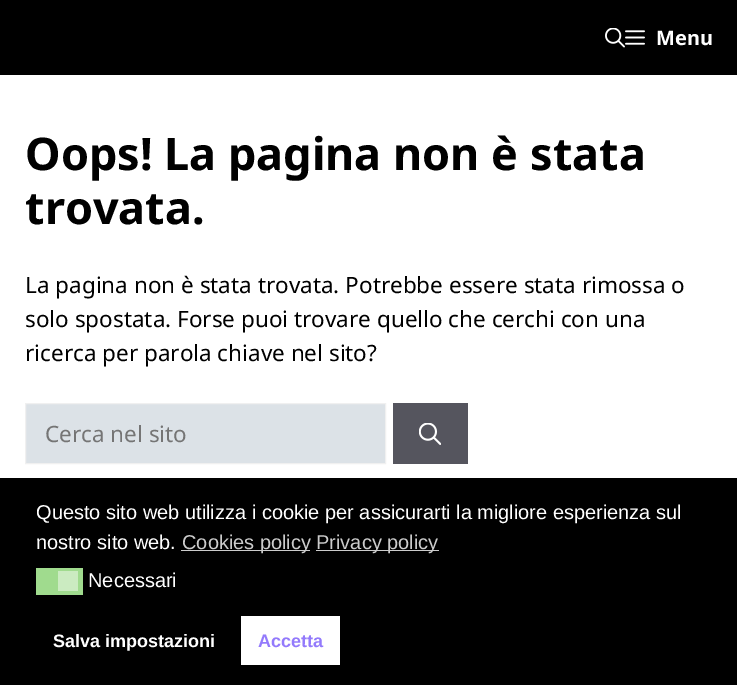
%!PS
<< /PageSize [737 685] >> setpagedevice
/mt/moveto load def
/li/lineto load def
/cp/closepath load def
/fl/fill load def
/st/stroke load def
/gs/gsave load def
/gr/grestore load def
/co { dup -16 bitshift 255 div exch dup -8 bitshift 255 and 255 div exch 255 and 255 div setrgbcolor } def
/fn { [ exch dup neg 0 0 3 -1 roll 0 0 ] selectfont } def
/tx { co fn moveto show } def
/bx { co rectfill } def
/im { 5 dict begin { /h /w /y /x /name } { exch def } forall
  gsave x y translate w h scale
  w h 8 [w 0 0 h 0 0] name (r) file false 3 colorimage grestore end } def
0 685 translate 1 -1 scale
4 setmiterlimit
0 0 737 685 16#FFFFFF bx
0 0 737 75 16#000000 bx
(media/1.raw) 605 28 20 20 im
(media/2.raw) 625 30 20 15 im
16#DCE2E7 co
25.5 403.5 mt 385.5 403.5 li 385.5 463.5 li 25.5 463.5 li cp gs fl gr
16#F0F0F0 co
st
393 403 75 61 16#55555E bx
(media/3.raw) 419 423 22 22 im
0 478 737 207 16#000000 bx
181 550 129 1 16#CCCCCC bx
316 550 123 1 16#CCCCCC bx
36 568 47 27 16#A0DB8E bx
58 571 20 20 16#CBEBC1 bx
241 616 99 49 16#FFFFFF bx
(Menu) 656 45 /NotoSans-Bold 20 16#FFFFFF tx
(Oops! La pagina non è stata) 25 170 /NotoSans-Bold 45 16#000000 tx
(trovata.) 25 224 /NotoSans-Bold 45 16#000000 tx
(La pagina non è stata trovata. Potrebbe essere stata rimossa o) 25 293 /NotoSans-Regular 22.5 16#000000 tx
(solo spostata. Forse puoi trovare quello che cerchi con una) 25 327 /NotoSans-Regular 22.5 16#000000 tx
(ricerca per parola chiave nel sito?) 25 361 /NotoSans-Regular 22.5 16#000000 tx
(Cerca nel sito) 45 442 /NotoSans-Regular 22.5 16#757575 tx
(Questo sito web utilizza i cookie per assicurarti la migliore esperienza sul) 36 519 /LiberationSans-Regular 20 16#FFFFFF tx
(nostro sito web.) 36 549 /LiberationSans-Regular 20 16#FFFFFF tx
(Cookies policy) 182 549 /LiberationSans-Regular 20 16#CCCCCC tx
(Privacy policy) 316 549 /LiberationSans-Regular 20 16#CCCCCC tx
(Necessari) 88 587 /LiberationSans-Regular 20 16#FFFFFF tx
(Salva impostazioni) 53 647 /LiberationSans-Bold 18 16#FFFFFF tx
(Accetta) 258 647 /LiberationSans-Bold 18 16#937AFC tx
showpage
